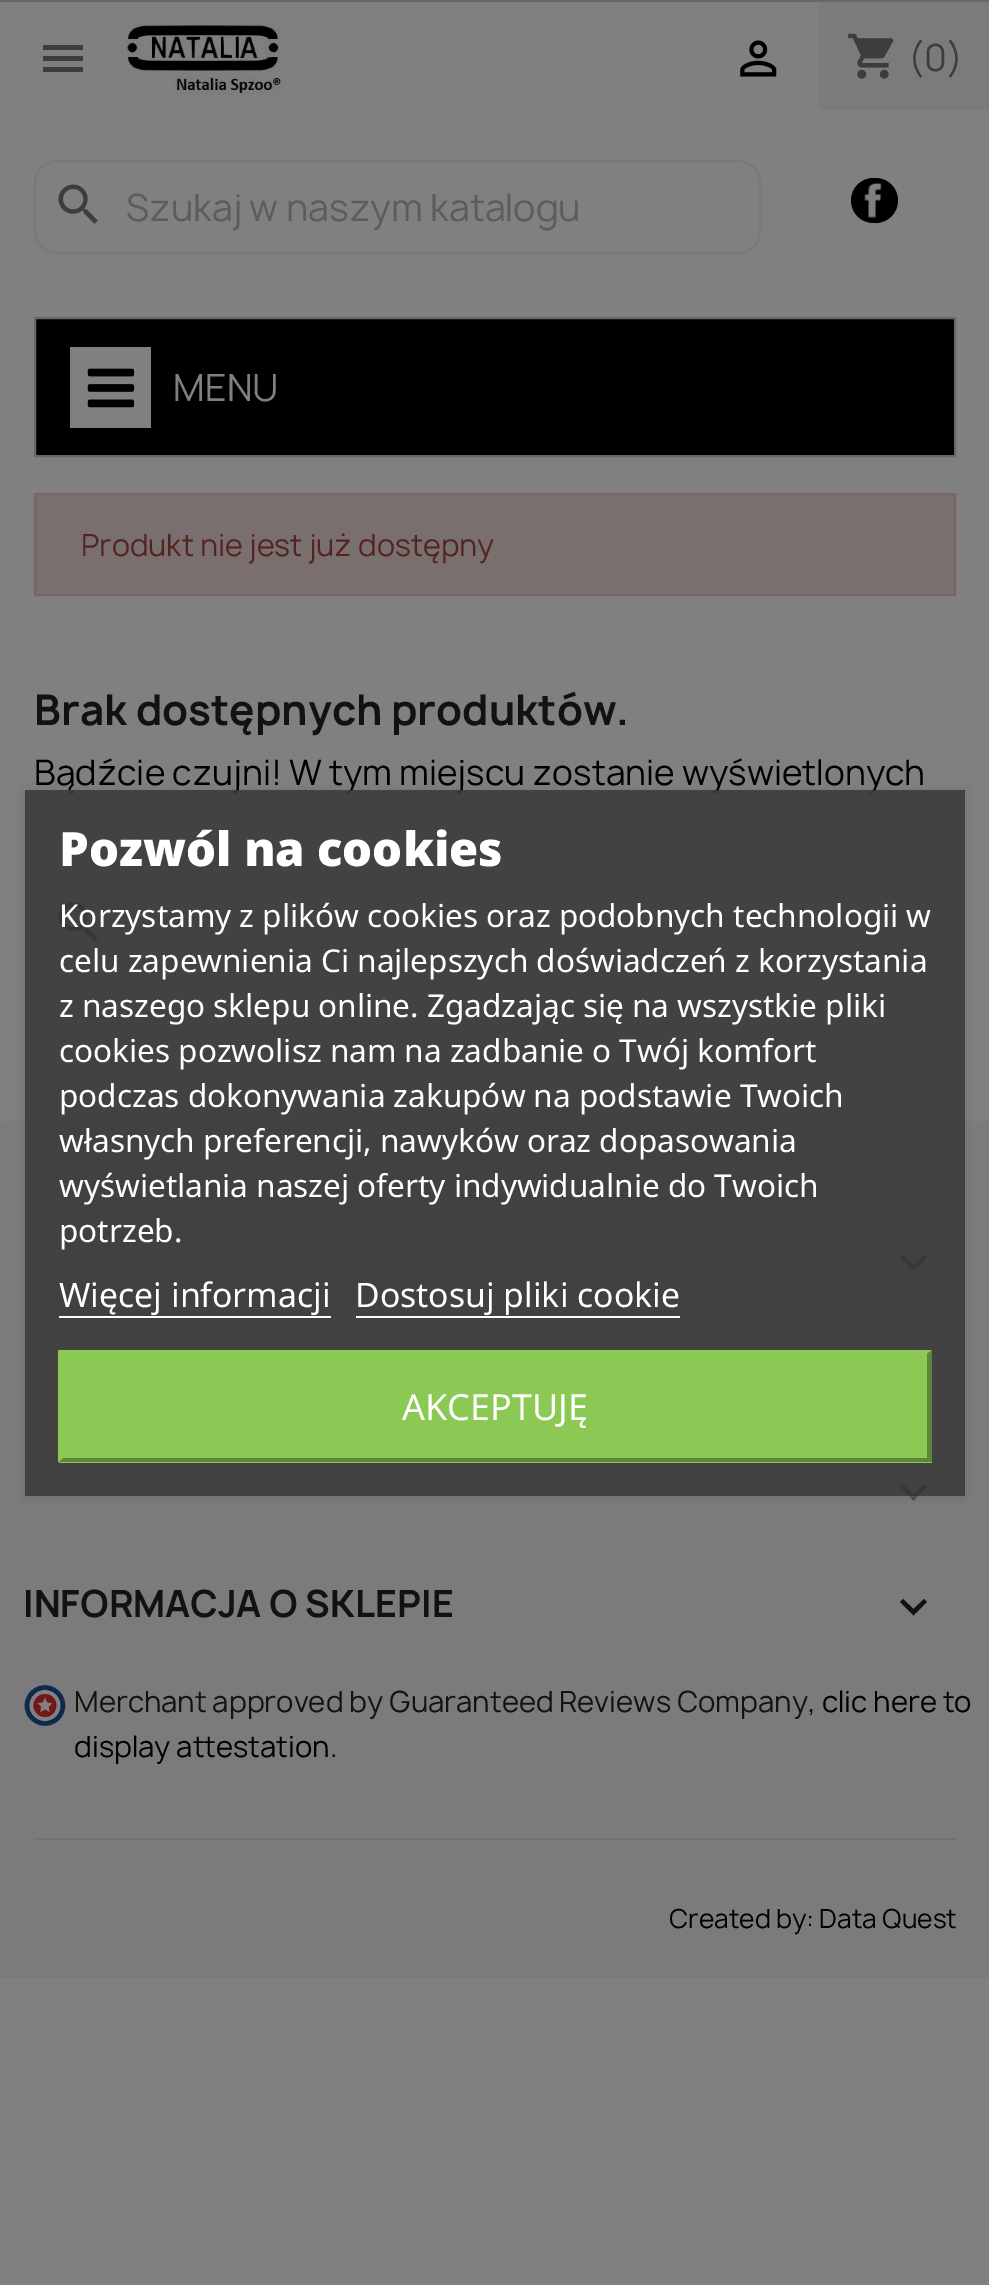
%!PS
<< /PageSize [989 2285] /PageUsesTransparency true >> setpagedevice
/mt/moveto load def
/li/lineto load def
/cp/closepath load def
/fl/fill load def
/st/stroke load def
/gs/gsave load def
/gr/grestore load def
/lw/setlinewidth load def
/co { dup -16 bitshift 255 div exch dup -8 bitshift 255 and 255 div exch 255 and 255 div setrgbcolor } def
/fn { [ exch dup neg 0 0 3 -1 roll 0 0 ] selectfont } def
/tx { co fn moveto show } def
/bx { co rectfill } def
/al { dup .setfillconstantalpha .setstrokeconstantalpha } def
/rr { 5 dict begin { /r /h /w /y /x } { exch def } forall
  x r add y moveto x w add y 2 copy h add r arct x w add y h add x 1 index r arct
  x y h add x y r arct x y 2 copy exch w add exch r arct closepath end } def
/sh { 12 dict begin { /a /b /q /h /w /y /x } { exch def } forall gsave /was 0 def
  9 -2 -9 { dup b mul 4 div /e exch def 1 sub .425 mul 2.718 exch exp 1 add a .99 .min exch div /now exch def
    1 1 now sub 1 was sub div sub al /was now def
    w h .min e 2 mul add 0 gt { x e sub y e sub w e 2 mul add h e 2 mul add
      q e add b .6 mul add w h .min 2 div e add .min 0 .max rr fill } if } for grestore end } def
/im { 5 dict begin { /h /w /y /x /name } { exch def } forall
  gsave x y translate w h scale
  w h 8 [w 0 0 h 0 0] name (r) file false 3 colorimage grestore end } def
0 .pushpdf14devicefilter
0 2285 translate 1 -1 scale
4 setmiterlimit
0 0 989 2285 16#808080 bx
0 0 989 2 16#676767 bx
16#3D3D3D co
43 45 mt 83 45 li 83 50 li 43 50 li cp 43 61 mt 43 56 li 83 56 li 83 61 li cp 43 72 mt 43 67 li 83 67 li 83 72 li cp fl
(media/1.raw) 126 23 156 72 im
(media/2.raw) 740 40 37 37 im
819 2 170 108 16#7B7B7B bx
(media/3.raw) 848 33 46 46 im
16#797979 co
2 lw
35 161 725 92 22 rr st
(media/4.raw) 58 184 40 40 im
16#000000 co
851 178 47 45 22.5 rr fl
(media/5.raw) 864 182 18 36 im
35 318 mt 955 318 li 955 456 li 35 456 li cp gs fl gr
16#676767 co
st
70 347 81 81 16#808080 bx
(media/6.raw) 87 368 48 40 im
16#796F6F co
35 494 mt 955 494 li 955 595 li 35 595 li cp gs fl gr
16#766666 co
st
16#797979 co
35 879 884 92 22 rr st
(media/7.raw) 58 902 40 40 im
0 1121 989 857 16#7B7B7B bx
16#121212 co
903 1254.5 mt 913.5 1265 li 924 1254.5 li 927 1257.5 li 913.5 1271 li 900 1257.5 li cp fl
903 1484 mt 913.5 1494.5 li 924 1484 li 927 1487 li 913.5 1500.5 li 900 1487 li cp fl
gs
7 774 mt 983 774 li 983 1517 li 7 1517 li cp 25 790 mt 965 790 li 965 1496 li 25 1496 li cp eoclip newpath
16#707070 co
25 792 940 707 0 5.5 1 sh
gr
903 1599 mt 913.5 1609 li 924 1599 li 927 1602 li 913.5 1615.5 li 900 1602 li cp fl
(media/8.raw) 24 1684 42 43 im
34 1838 922 2 16#727272 bx
(\(0\)) 908 71 /Manrope-Regular 36 16#3D3D3D tx
(Szukaj w naszym katalogu) 126 221 /Manrope-Regular 36 16#5C5C5C tx
(MENU) 173 401 /Manrope-Regular 36 16#808080 tx
(Produkt nie jest już dostępny) 81 556 /Manrope-Regular 29.25 16#552221 tx
(Brak dostępnych produktów.) 34 725 /Manrope-Bold 40.5 16#121212 tx
(Bądźcie czujni! W tym miejscu zostanie wyświetlonych) 34 785 /Manrope-Regular 33.75 16#000000 tx
0.9 al
25 790 940 706 16#3B3B3B bx
1 al
(Pozwól na cookies) 59 866 /NotoSans-Black 47.25 16#FFFFFF tx
(Korzystamy z plików cookies oraz podobnych technologii w) 59 927 /NotoSans-Regular 31.5 16#FFFFFF tx
(celu zapewnienia Ci najlepszych doświadczeń z korzystania) 59 972 /NotoSans-Regular 31.5 16#FFFFFF tx
(z naszego sklepu online. Zgadzając się na wszystkie pliki) 59 1017 /NotoSans-Regular 31.5 16#FFFFFF tx
(cookies pozwolisz nam na zadbanie o Twój komfort) 59 1062 /NotoSans-Regular 31.5 16#FFFFFF tx
(podczas dokonywania zakupów na podstawie Twoich) 59 1107 /NotoSans-Regular 31.5 16#FFFFFF tx
(własnych preferencji, nawyków oraz dopasowania) 59 1152 /NotoSans-Regular 31.5 16#FFFFFF tx
(wyświetlania naszej oferty indywidualnie do Twoich) 59 1197 /NotoSans-Regular 31.5 16#FFFFFF tx
(potrzeb.) 59 1242 /NotoSans-Regular 31.5 16#FFFFFF tx
(Więcej informacji) 59 1307 /NotoSans-Regular 33.75 16#FFFFFF tx
59 1316 272 2 16#FFFFFF bx
(Dostosuj pliki cookie) 355 1307 /NotoSans-Regular 33.75 16#FFFFFF tx
356 1316 324 2 16#FFFFFF bx
59 1350 873 113 16#8BC954 bx
58 1350 mt 932 1350 li 927 1354 li 63 1354 li cp fl
16#5D8638 co
932 1350 mt 932 1462 li 927 1458 li 927 1354 li cp fl
932 1462 mt 58 1462 li 63 1458 li 927 1458 li cp fl
16#8BC954 co
58 1462 mt 58 1350 li 63 1354 li 63 1458 li cp fl
(AKCEPTUJĘ) 402 1420 /NotoSans-Regular 36 16#FFFFFF tx
(INFORMACJA O SKLEPIE) 23 1617 /Manrope-Bold 36 16#121212 tx
(Merchant approved by Guaranteed Reviews Company,) 74 1712 /Manrope-Regular 28.1 16#121212 tx
(clic here to) 822 1712 /Manrope-Regular 28.1 16#000000 tx
(display attestation) 74 1757 /Manrope-Regular 28.1 16#000000 tx
(.) 330 1757 /Manrope-Regular 28.1 16#121212 tx
(Created by: Data Quest) 669 1928 /Manrope-Regular 25.25 16#000000 tx
.poppdf14devicefilter showpage
